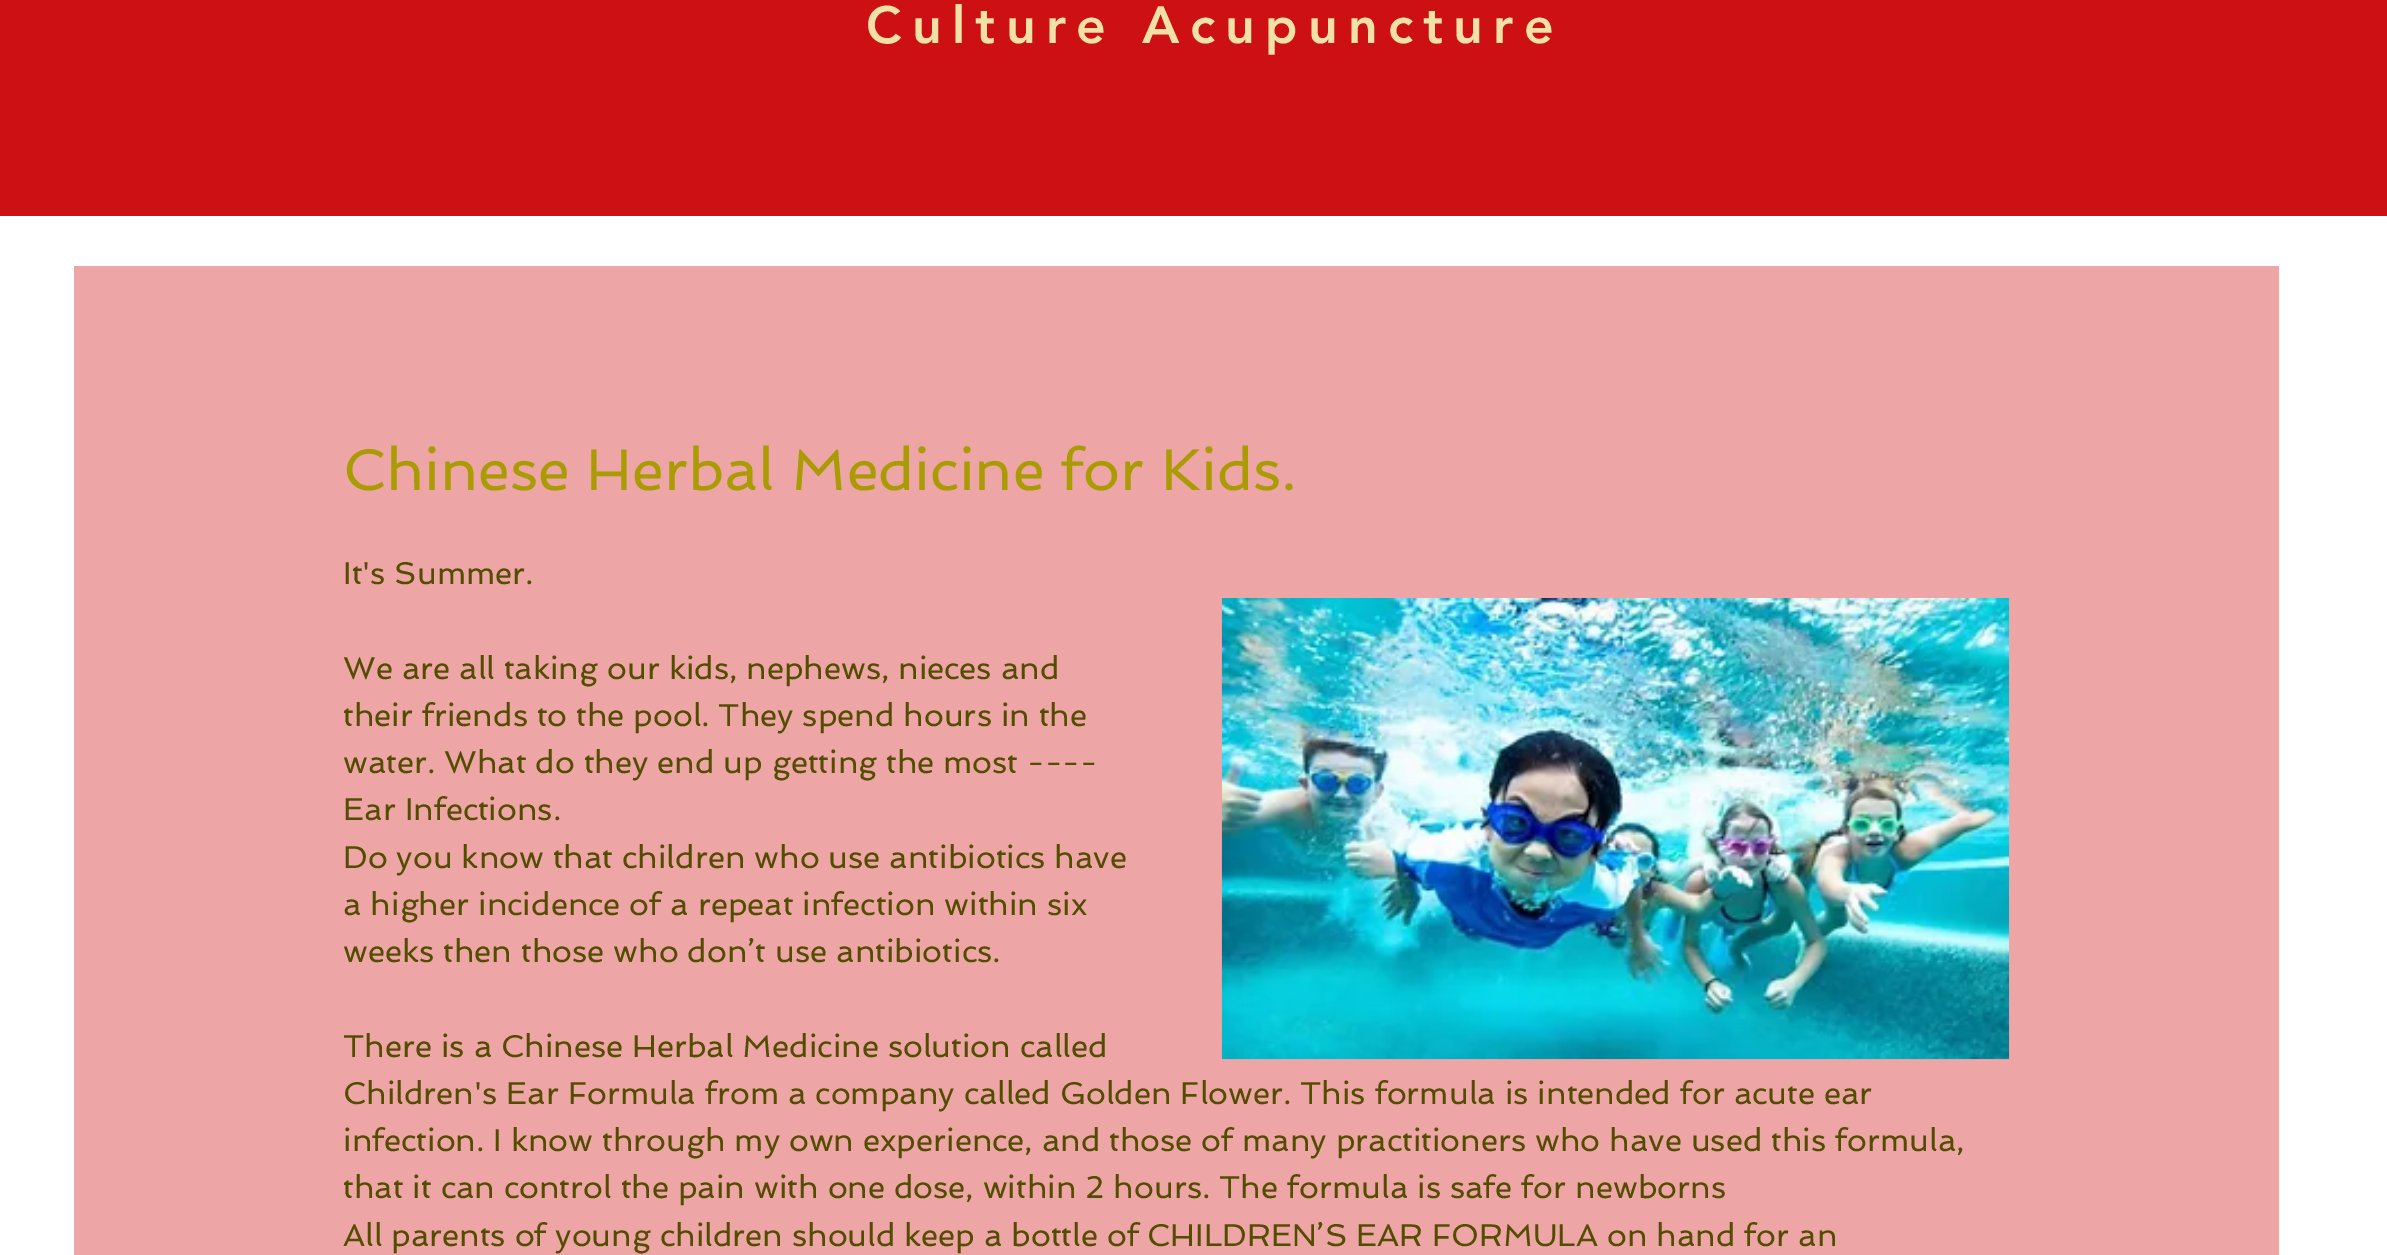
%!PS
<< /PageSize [2387 1255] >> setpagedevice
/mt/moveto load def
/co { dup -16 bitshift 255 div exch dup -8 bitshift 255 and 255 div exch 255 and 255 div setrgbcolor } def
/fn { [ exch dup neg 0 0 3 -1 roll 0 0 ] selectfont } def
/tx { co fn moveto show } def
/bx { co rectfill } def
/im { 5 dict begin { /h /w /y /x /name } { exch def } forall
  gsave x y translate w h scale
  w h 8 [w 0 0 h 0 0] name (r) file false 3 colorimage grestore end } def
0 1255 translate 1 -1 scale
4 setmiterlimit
0 0 2387 1255 16#CC1013 bx
0 216 2387 1039 16#FFFFFF bx
74 266 2205 989 16#EDA5A6 bx
(media/1.raw) 1221 598 789 462 im
/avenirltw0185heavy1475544-Black 51.75 fn
16#F2E1A7 co
866 43 mt 10.3 0 (Culture Acupuncture) ashow
(Chinese Herbal Medicine for Kids.) 343 490 /Spinnaker-Regular 58.5 16#A99B00 tx
(It's Summer.) 343 584 /Spinnaker-Regular 31.5 16#544D00 tx
(We are all taking our kids, nephews, nieces and) 343 679 /Spinnaker-Regular 31.5 16#544D00 tx
(their friends to the pool. They spend hours in the) 343 726 /Spinnaker-Regular 31.5 16#544D00 tx
(water. What do they end up getting the most ----) 343 773 /Spinnaker-Regular 31.5 16#544D00 tx
(Ear Infections.) 343 820 /Spinnaker-Regular 31.5 16#544D00 tx
(Do you know that children who use antibiotics have) 343 868 /Spinnaker-Regular 31.5 16#544D00 tx
(a higher incidence of a repeat infection within six) 343 915 /Spinnaker-Regular 31.5 16#544D00 tx
(weeks then those who don’t use antibiotics.) 343 962 /Spinnaker-Regular 31.5 16#544D00 tx
(There is a Chinese Herbal Medicine solution called) 343 1057 /Spinnaker-Regular 31.5 16#544D00 tx
(Children's Ear Formula from a company called Golden Flower. This formula is intended for acute ear) 343 1104 /Spinnaker-Regular 31.5 16#544D00 tx
(infection. I know through my own experience, and those of many practitioners who have used this formula,) 343 1151 /Spinnaker-Regular 31.5 16#544D00 tx
(that it can control the pain with one dose, within 2 hours. The formula is safe for newborns) 343 1198 /Spinnaker-Regular 31.5 16#544D00 tx
(All parents of young children should keep a bottle of CHILDREN’S EAR FORMULA on hand for an) 343 1246 /Spinnaker-Regular 31.5 16#544D00 tx
showpage
